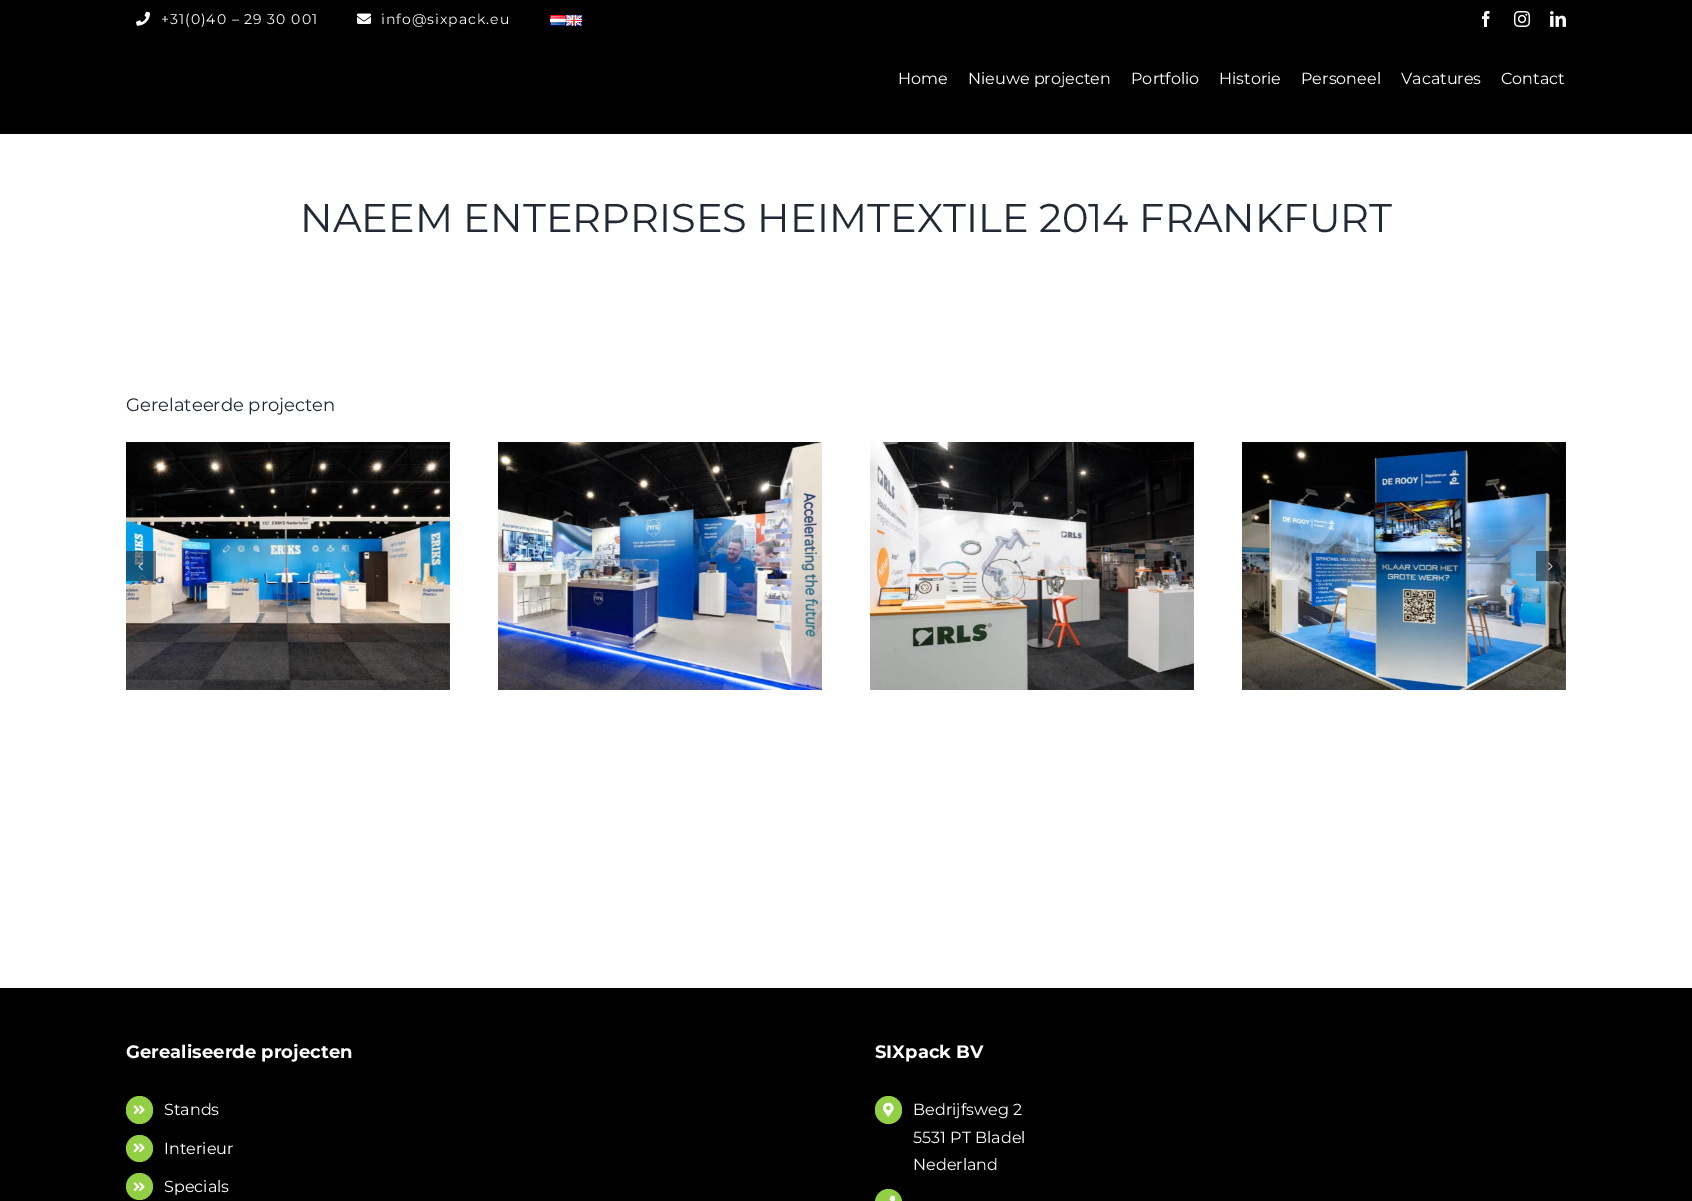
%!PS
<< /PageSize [1692 1201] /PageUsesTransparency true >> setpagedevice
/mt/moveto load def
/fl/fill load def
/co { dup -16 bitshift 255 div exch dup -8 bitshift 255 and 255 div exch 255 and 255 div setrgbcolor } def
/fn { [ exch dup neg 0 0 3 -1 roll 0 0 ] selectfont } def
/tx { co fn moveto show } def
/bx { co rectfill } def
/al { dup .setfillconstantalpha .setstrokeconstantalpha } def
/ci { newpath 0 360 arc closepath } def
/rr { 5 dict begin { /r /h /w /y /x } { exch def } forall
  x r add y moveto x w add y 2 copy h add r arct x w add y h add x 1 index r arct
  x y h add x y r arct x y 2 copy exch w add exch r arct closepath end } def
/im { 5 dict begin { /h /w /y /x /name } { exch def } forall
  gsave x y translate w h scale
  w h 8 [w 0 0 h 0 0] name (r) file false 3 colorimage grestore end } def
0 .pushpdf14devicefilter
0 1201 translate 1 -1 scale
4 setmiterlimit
0 0 1692 1201 16#FFFFFF bx
0 0 1692 134 16#000000 bx
(media/1.raw) 136 11 14 15 im
(media/2.raw) 357 13 14 11 im
(media/3.raw) 550 15 16 11 im
(media/4.raw) 566 15 16 11 im
(media/5.raw) 1482 11 8 16 im
(media/6.raw) 1514 11 16 16 im
(media/7.raw) 1550 11 16 16 im
(media/8.raw) 126 442 324 248 im
(media/9.raw) 498 442 324 248 im
(media/10.raw) 870 442 324 248 im
(media/11.raw) 1242 442 324 248 im
0.56 al
126 551 30 30 16#1D242D bx
1 al
(media/12.raw) 138 562 5 9 im
0.56 al
1536 551 30 30 16#1D242D bx
1 al
(media/13.raw) 1548 562 5 9 im
0 988 1692 213 16#000000 bx
16#92CF44 co
126 1096 27 28 13.5 rr fl
(media/14.raw) 133 1105 12 10 im
139.5 1148.5 13.5 ci fl
(media/14.raw) 133 1143 12 10 im
139.5 1186.5 13.5 ci fl
(media/14.raw) 133 1182 12 10 im
875 1096 27 28 13.5 rr fl
(media/15.raw) 883 1102 11 15 im
875 1189 27 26 13.5 rr fl
(media/16.raw) 889 1195 7 6 im
/Montserrat-Regular 14 fn
16#FFFFFF co
161 24 mt 1 0 (+31\(0\)40 – 29 30 001) ashow
381 24 mt 1 0 (info@sixpack.eu) ashow
(Home) 898 84 /Montserrat-Regular 16 16#FFFFFF tx
(Nieuwe projecten) 968 84 /Montserrat-Regular 16 16#FFFFFF tx
(Portfolio) 1131 84 /Montserrat-Regular 16 16#FFFFFF tx
(Historie) 1219 84 /Montserrat-Regular 16 16#FFFFFF tx
(Personeel) 1301 84 /Montserrat-Regular 16 16#FFFFFF tx
(Vacatures) 1401 84 /Montserrat-Regular 16 16#FFFFFF tx
(Contact) 1501 84 /Montserrat-Regular 16 16#FFFFFF tx
(NAEEM ENTERPRISES HEIMTEXTILE 2014 FRANKFURT) 300 232 /Montserrat-Regular 40 16#212934 tx
(Gerelateerde projecten) 126 411 /Montserrat-Regular 18 16#212934 tx
(Gerealiseerde projecten) 126 1058 /Montserrat-Bold 18 16#FFFFFF tx
(Stands) 164 1115 /Montserrat-Regular 16 16#FFFFFF tx
(Interieur) 164 1154 /Montserrat-Regular 16 16#FFFFFF tx
(Specials) 164 1192 /Montserrat-Regular 16 16#FFFFFF tx
(SIXpack BV) 875 1058 /Montserrat-Bold 18 16#FFFFFF tx
(Bedrijfsweg 2) 913 1115 /Montserrat-Regular 16 16#FFFFFF tx
(5531 PT Bladel) 913 1143 /Montserrat-Regular 16 16#FFFFFF tx
(Nederland) 913 1170 /Montserrat-Regular 16 16#FFFFFF tx
.poppdf14devicefilter showpage
